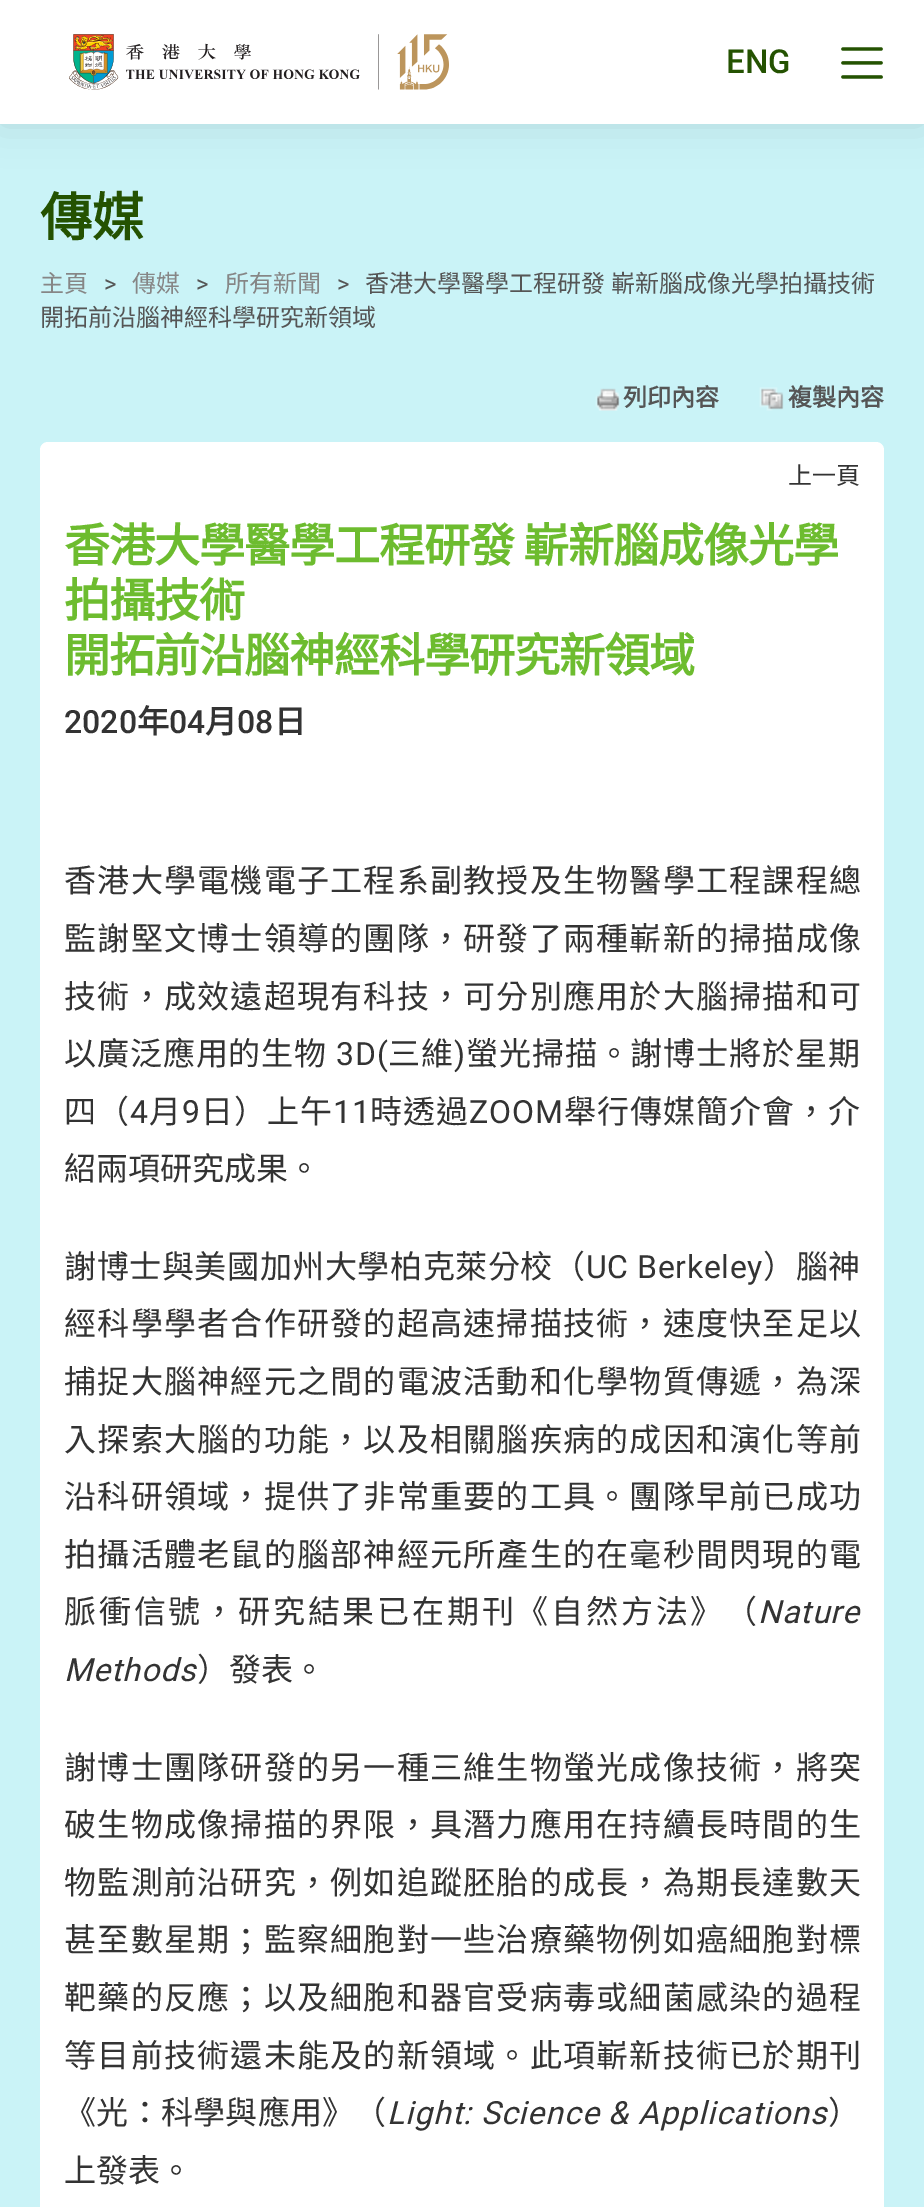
%!PS
<< /PageSize [924 2207] /PageUsesTransparency true >> setpagedevice
/mt/moveto load def
/fl/fill load def
/co { dup -16 bitshift 255 div exch dup -8 bitshift 255 and 255 div exch 255 and 255 div setrgbcolor } def
/fn { [ exch dup neg 0 0 3 -1 roll 0 0 ] selectfont } def
/tx { co fn moveto show } def
/bx { co rectfill } def
/al { dup .setfillconstantalpha .setstrokeconstantalpha } def
/rr { 5 dict begin { /r /h /w /y /x } { exch def } forall
  x r add y moveto x w add y 2 copy h add r arct x w add y h add x 1 index r arct
  x y h add x y r arct x y 2 copy exch w add exch r arct closepath end } def
/sh { 12 dict begin { /a /b /q /h /w /y /x } { exch def } forall gsave /was 0 def
  9 -2 -9 { dup b mul 4 div /e exch def 1 sub .425 mul 2.718 exch exp 1 add a .99 .min exch div /now exch def
    1 1 now sub 1 was sub div sub al /was now def
    w h .min e 2 mul add 0 gt { x e sub y e sub w e 2 mul add h e 2 mul add
      q e add b .6 mul add w h .min 2 div e add .min 0 .max rr fill } if } for grestore end } def
/im { 5 dict begin { /h /w /y /x /name } { exch def } forall
  gsave x y translate w h scale
  w h 8 [w 0 0 h 0 0] name (r) file false 3 colorimage grestore end } def
0 .pushpdf14devicefilter
0 2207 translate 1 -1 scale
4 setmiterlimit
0 0 924 2207 16#CAF3F7 bx
16#000000 co
0 0 924 124 0 20 .11 sh
0 0 924 124 16#FFFFFF bx
(media/1.raw) 69 34 380 56 im
(media/2.raw) 841 47 42 32 im
(media/3.raw) 595 388 26 23 im
(media/4.raw) 759 387 25 24 im
40 442 844 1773 8 rr fl
(ENG) 726 73 /Roboto-Medium 33 16#245201 tx
(傳媒) 40 236 /NotoSansCJKTC-Bold 52 16#245201 tx
(主頁) 40 292 /NotoSansCJKTC-Regular 24 16#868686 tx
(>) 104 292 /Roboto-Regular 24 16#555555 tx
(傳媒) 132 292 /NotoSansCJKTC-Regular 24 16#868686 tx
(>) 196 292 /Roboto-Regular 24 16#555555 tx
(所有新聞) 225 292 /NotoSansCJKTC-Regular 24 16#868686 tx
(>) 337 292 /Roboto-Regular 24 16#555555 tx
/NotoSansCJKTC-Regular 24 fn
365 292 mt 1 0 32 (香港大學醫學工程研發 嶄新腦成像光學拍攝技術) widthshow
(開拓前沿腦神經科學研究新領域) 40 326 /NotoSansCJKTC-Regular 24 16#555555 tx
(列印內容) 623 406 /NotoSansCJKTC-Bold 24 16#555555 tx
(複製內容) 788 406 /NotoSansCJKTC-Bold 24 16#555555 tx
(上一頁) 788 484 /NotoSansCJKTC-Regular 24 16#333333 tx
/NotoSansCJKTC-Bold 46 fn
16#6DBC2F co
64 562 mt -1 0 (香港大學醫學工程研發 嶄新腦成像光學) ashow
64 617 mt -1 0 (拍攝技術) ashow
64 672 mt -1 0 (開拓前沿腦神經科學研究新領域) ashow
(2020) 64 733 /Roboto-Medium 32 16#333333 tx
(年) 137 733 /NotoSansCJKTC-Bold 32 16#333333 tx
(04) 169 733 /Roboto-Medium 32 16#333333 tx
(月) 205 733 /NotoSansCJKTC-Bold 32 16#333333 tx
(08) 237 733 /Roboto-Medium 32 16#333333 tx
(日) 274 733 /NotoSansCJKTC-Bold 32 16#333333 tx
/NotoSansCJKTC-Regular 32 fn
64 892 mt 1.25 0 (香港大學電機電子工程系副教授及生物醫學工程課程總) ashow
64 950 mt 1.25 0 (監謝堅文博士領導的團隊，研發了兩種嶄新的掃描成像) ashow
64 1008 mt 1.25 0 (技術，成效遠超現有科技，可分別應用於大腦掃描和可) ashow
64 1065 mt .9 0 (以廣泛應用的生物) ashow
/Roboto-Regular 32 fn
336 1065 mt .9 0 (3D\() ashow
/NotoSansCJKTC-Regular 32 fn
388 1065 mt .9 0 (三維) ashow
/Roboto-Regular 32 fn
454 1065 mt .9 0 (\)) ashow
/NotoSansCJKTC-Regular 32 fn
466 1065 mt .9 0 (螢光掃描。謝博士將於星期) ashow
64 1123 mt 1 0 (四（) ashow
/Roboto-Regular 32 fn
130 1123 mt 1 0 (4) ashow
/NotoSansCJKTC-Regular 32 fn
149 1123 mt 1 0 (月) ashow
/Roboto-Regular 32 fn
182 1123 mt 1 0 (9) ashow
/NotoSansCJKTC-Regular 32 fn
201 1123 mt 1 0 (日）上午) ashow
/Roboto-Regular 32 fn
333 1123 mt 1 0 (11) ashow
/NotoSansCJKTC-Regular 32 fn
370 1123 mt 1 0 (時透過) ashow
/Roboto-Regular 32 fn
469 1123 mt 1 0 (ZOOM) ashow
/NotoSansCJKTC-Regular 32 fn
564 1123 mt 1 0 (舉行傳媒簡介會，介) ashow
(紹兩項研究成果。) 64 1180 /NotoSansCJKTC-Regular 32 16#333333 tx
64 1278 mt .6 0 (謝博士與美國加州大學柏克萊分校（) ashow
/Roboto-Regular 32 fn
586 1278 mt .6 0 (UC Berkeley) ashow
/NotoSansCJKTC-Regular 32 fn
763 1278 mt .6 0 (）腦神) ashow
64 1335 mt 1.25 0 (經科學學者合作研發的超高速掃描技術，速度快至足以) ashow
64 1393 mt 1.25 0 (捕捉大腦神經元之間的電波活動和化學物質傳遞，為深) ashow
64 1451 mt 1.25 0 (入探索大腦的功能，以及相關腦疾病的成因和演化等前) ashow
64 1508 mt 1.25 0 (沿科研領域，提供了非常重要的工具。團隊早前已成功) ashow
64 1566 mt 1.25 0 (拍攝活體老鼠的腦部神經元所產生的在毫秒間閃現的電) ashow
64 1623 mt 2.8 0 (脈衝信號，研究結果已在期刊《自然方法》（) ashow
/Roboto-Italic 32 fn
758 1623 mt 1 0 (Nature) ashow
64 1681 mt 1 0 (Methods) ashow
(）發表。) 197 1681 /NotoSansCJKTC-Regular 32 16#333333 tx
64 1779 mt 1.25 0 (謝博士團隊研發的另一種三維生物螢光成像技術，將突) ashow
64 1836 mt 1.25 0 (破生物成像掃描的界限，具潛力應用在持續長時間的生) ashow
64 1894 mt 1.25 0 (物監測前沿研究，例如追蹤胚胎的成長，為期長達數天) ashow
64 1951 mt 1.25 0 (甚至數星期；監察細胞對一些治療藥物例如癌細胞對標) ashow
64 2009 mt 1.25 0 (靶藥的反應；以及細胞和器官受病毒或細菌感染的過程) ashow
64 2067 mt 1.25 0 (等目前技術還未能及的新領域。此項嶄新技術已於期刊) ashow
64 2124 mt .25 0 (《光：科學與應用》（) ashow
/Roboto-Italic 32 fn
387 2124 mt 1 0 (Light: Science & Applications) ashow
(）) 828 2124 /NotoSansCJKTC-Regular 32 16#333333 tx
(上發表。) 64 2182 /NotoSansCJKTC-Regular 32 16#333333 tx
.poppdf14devicefilter showpage
